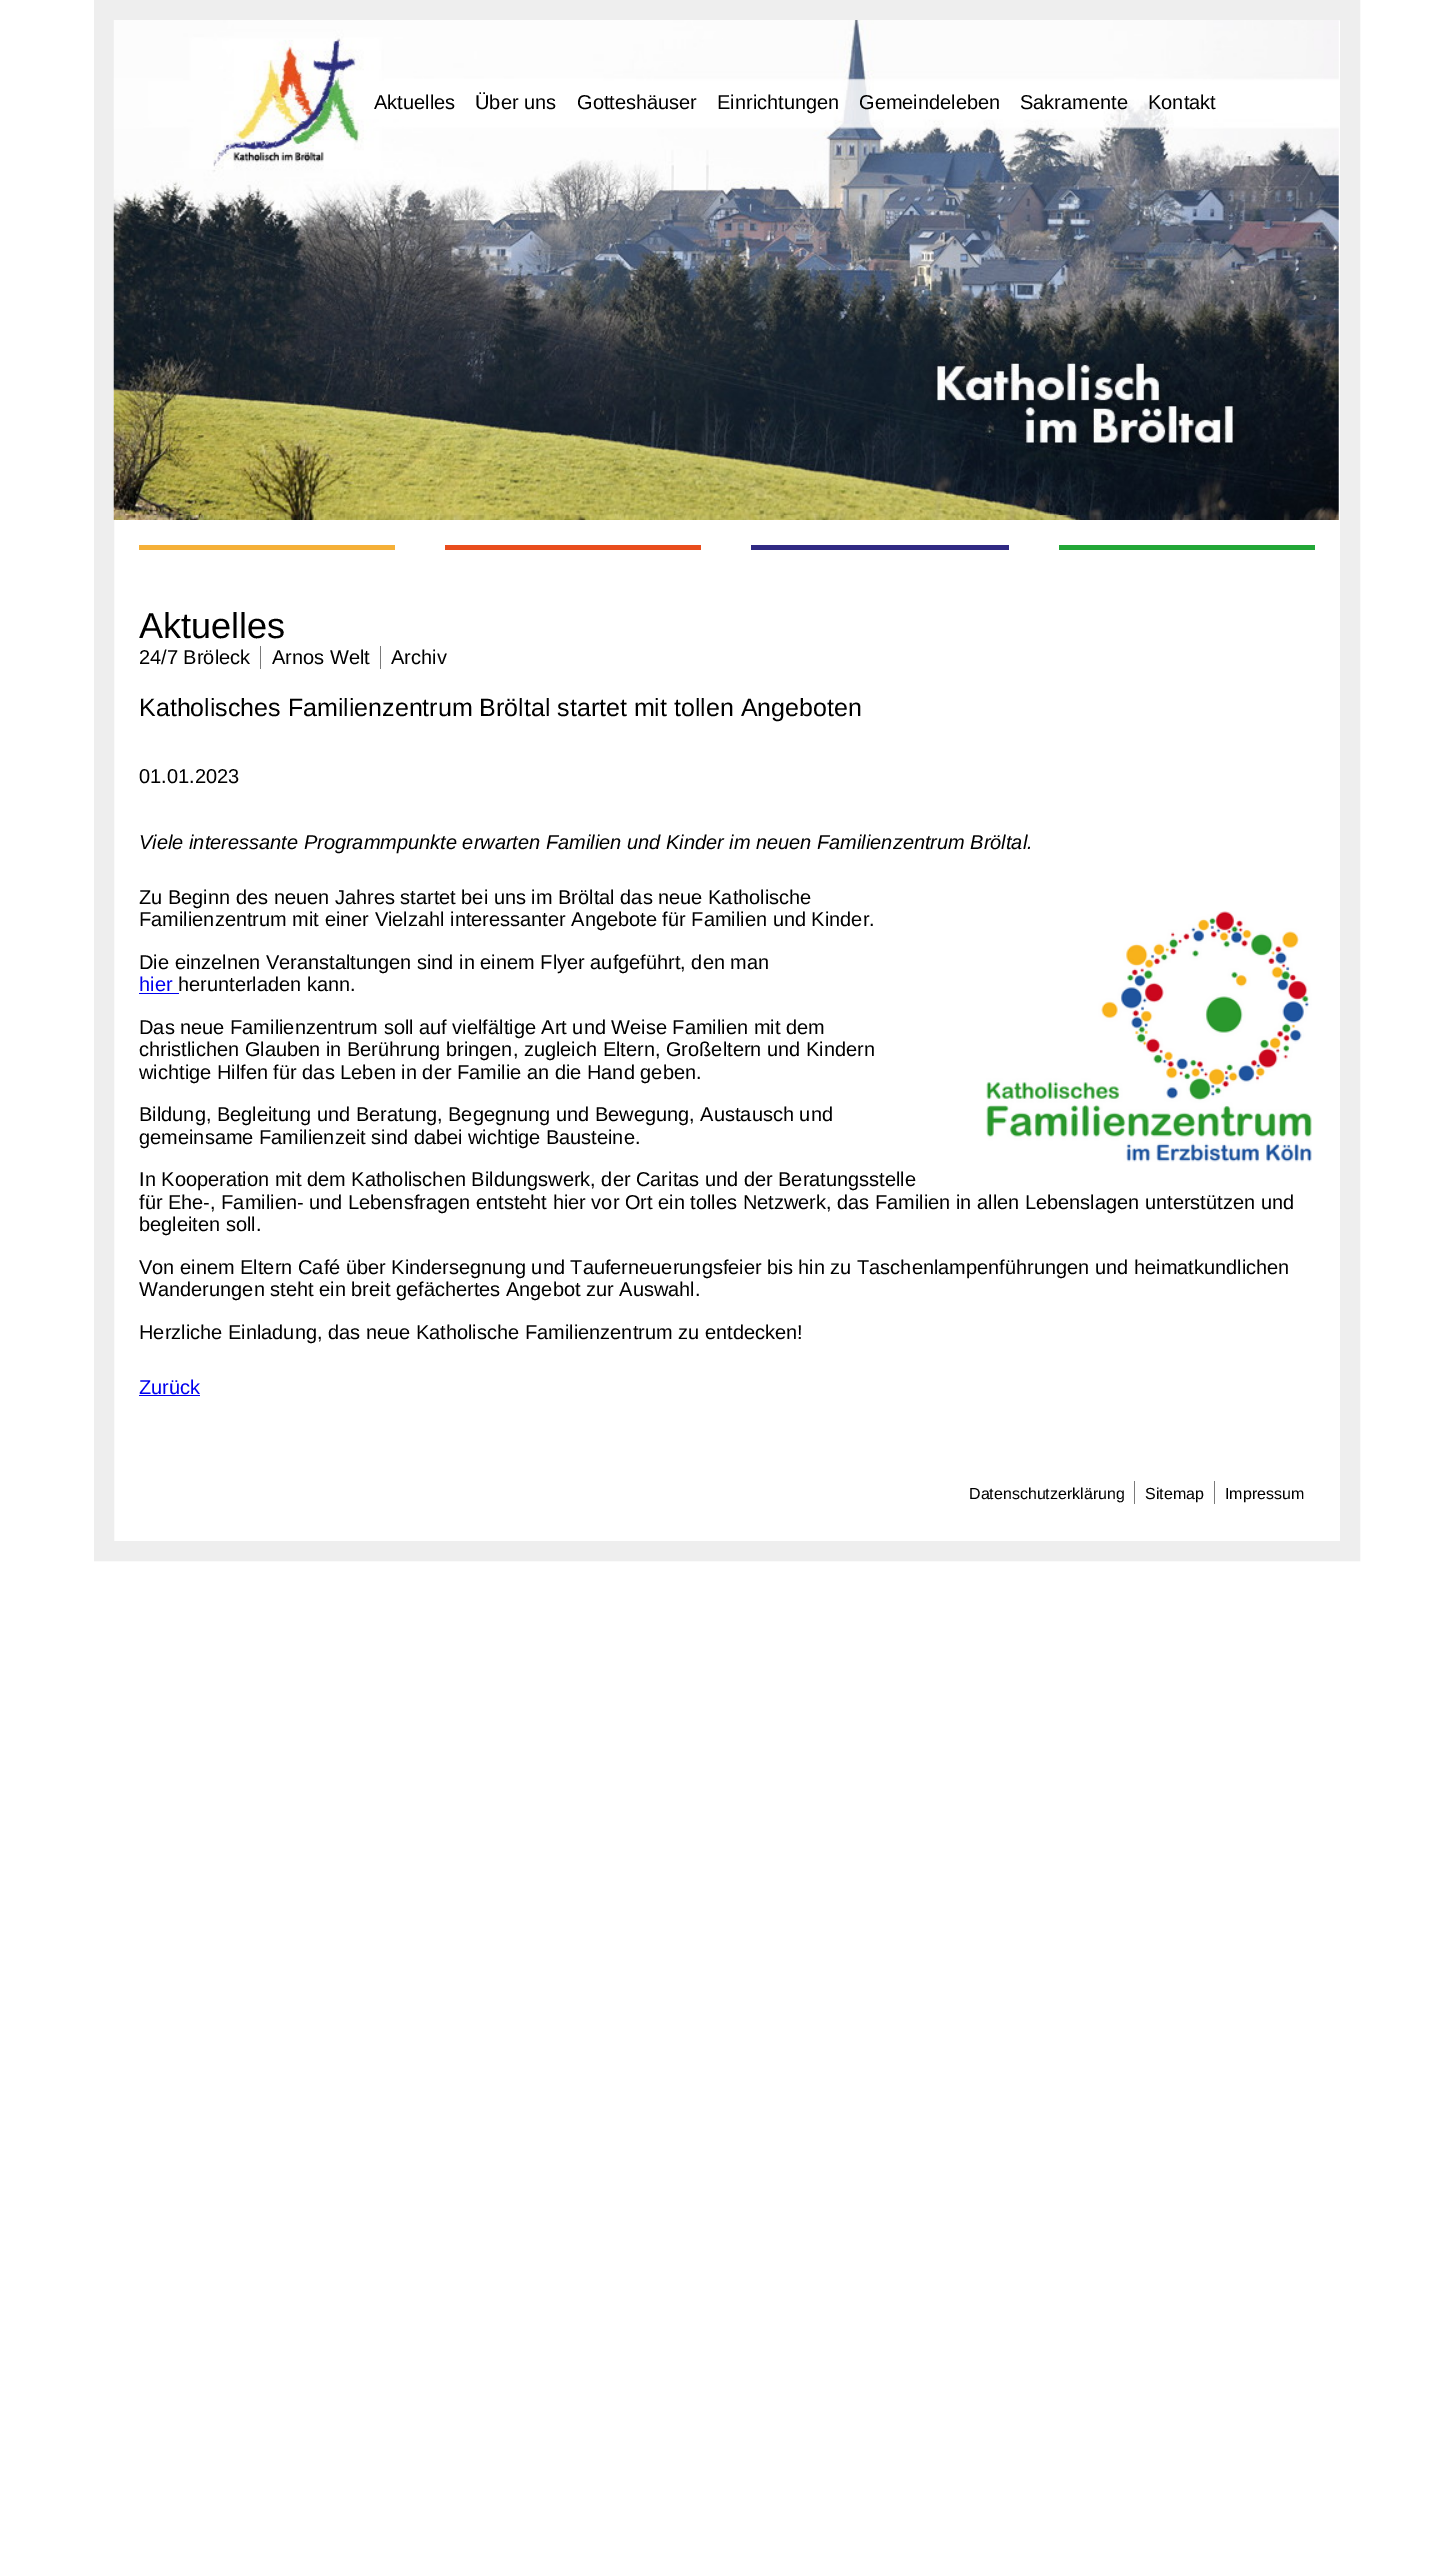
%!PS
<< /PageSize [1453 2568] >> setpagedevice
/lw/setlinewidth load def
/co { dup -16 bitshift 255 div exch dup -8 bitshift 255 and 255 div exch 255 and 255 div setrgbcolor } def
/fn { [ exch dup neg 0 0 3 -1 roll 0 0 ] selectfont } def
/tx { co fn moveto show } def
/bx { co rectfill } def
/im { 5 dict begin { /h /w /y /x /name } { exch def } forall
  gsave x y translate w h scale
  w h 8 [w 0 0 h 0 0] name (r) file false 3 colorimage grestore end } def
0 2568 translate 1 -1 scale
4 setmiterlimit
0 0 1453 2568 16#FFFFFF bx
16#EEEEEE co
20 lw
104 10 1246 1541 rectstroke
(media/1.raw) 113 20 1226 500 im
139 545 256 5 16#F5B038 bx
445 545 256 5 16#E94D1D bx
751 545 258 5 16#302A83 bx
1059 545 256 5 16#22A737 bx
260 646 1 23 16#7A7A7A bx
380 646 1 23 16#7A7A7A bx
139 993 40 1 16#0000EE bx
(media/2.raw) 986 911 326 251 im
139 1395 61 1 16#0000EE bx
1134 1481 1 23 16#7A7A7A bx
1214 1481 1 23 16#7A7A7A bx
(Aktuelles) 374 109 /LiberationSans-Regular 20 16#000000 tx
(Über uns) 475 109 /LiberationSans-Regular 20 16#000000 tx
(Gotteshäuser) 577 109 /LiberationSans-Regular 20 16#000000 tx
(Einrichtungen) 717 109 /LiberationSans-Regular 20 16#000000 tx
(Gemeindeleben) 859 109 /LiberationSans-Regular 20 16#000000 tx
(Sakramente) 1020 109 /LiberationSans-Regular 20 16#000000 tx
(Kontakt) 1148 109 /LiberationSans-Regular 20 16#000000 tx
(Aktuelles) 139 638 /LiberationSans-Regular 36 16#000000 tx
(24/7 Bröleck) 139 664 /LiberationSans-Regular 20 16#000000 tx
(Arnos Welt) 272 664 /LiberationSans-Regular 20 16#000000 tx
(Archiv) 391 664 /LiberationSans-Regular 20 16#000000 tx
(Katholisches Familienzentrum Bröltal startet mit tollen Angeboten) 139 716 /LiberationSans-Regular 25 16#000000 tx
(01.01.2023) 139 783 /LiberationSans-Regular 20 16#000000 tx
(Viele interessante Programmpunkte erwarten Familien und Kinder im neuen Familienzentrum Bröltal.) 139 849 /LiberationSans-Italic 20 16#000000 tx
(Zu Beginn des neuen Jahres startet bei uns im Bröltal das neue Katholische) 139 904 /LiberationSans-Regular 20 16#000000 tx
(Familienzentrum mit einer Vielzahl interessanter Angebote für Familien und Kinder.) 139 926 /LiberationSans-Regular 20 16#000000 tx
(Die einzelnen Veranstaltungen sind in einem Flyer aufgeführt, den man) 139 969 /LiberationSans-Regular 20 16#000000 tx
(hier) 139 991 /LiberationSans-Regular 20 16#0000EE tx
(herunterladen kann.) 178 991 /LiberationSans-Regular 20 16#000000 tx
(Das neue Familienzentrum soll auf vielfältige Art und Weise Familien mit dem) 139 1034 /LiberationSans-Regular 20 16#000000 tx
(christlichen Glauben in Berührung bringen, zugleich Eltern, Großeltern und Kindern) 139 1056 /LiberationSans-Regular 20 16#000000 tx
(wichtige Hilfen für das Leben in der Familie an die Hand geben.) 139 1079 /LiberationSans-Regular 20 16#000000 tx
(Bildung, Begleitung und Beratung, Begegnung und Bewegung, Austausch und) 139 1121 /LiberationSans-Regular 20 16#000000 tx
(gemeinsame Familienzeit sind dabei wichtige Bausteine.) 139 1144 /LiberationSans-Regular 20 16#000000 tx
(In Kooperation mit dem Katholischen Bildungswerk, der Caritas und der Beratungsstelle) 139 1186 /LiberationSans-Regular 20 16#000000 tx
(für Ehe-, Familien- und Lebensfragen entsteht hier vor Ort ein tolles Netzwerk, das Familien in allen Lebenslagen unterstützen und) 139 1209 /LiberationSans-Regular 20 16#000000 tx
(begleiten soll.) 139 1231 /LiberationSans-Regular 20 16#000000 tx
(Von einem Eltern Café über Kindersegnung und Tauferneuerungsfeier bis hin zu Taschenlampenführungen und heimatkundlichen) 139 1274 /LiberationSans-Regular 20 16#000000 tx
(Wanderungen steht ein breit gefächertes Angebot zur Auswahl.) 139 1296 /LiberationSans-Regular 20 16#000000 tx
(Herzliche Einladung, das neue Katholische Familienzentrum zu entdecken!) 139 1339 /LiberationSans-Regular 20 16#000000 tx
(Zurück) 139 1394 /LiberationSans-Regular 20 16#0000EE tx
(Datenschutzerklärung) 969 1499 /LiberationSans-Regular 16 16#000000 tx
(Sitemap) 1145 1499 /LiberationSans-Regular 16 16#000000 tx
(Impressum) 1225 1499 /LiberationSans-Regular 16 16#000000 tx
showpage
